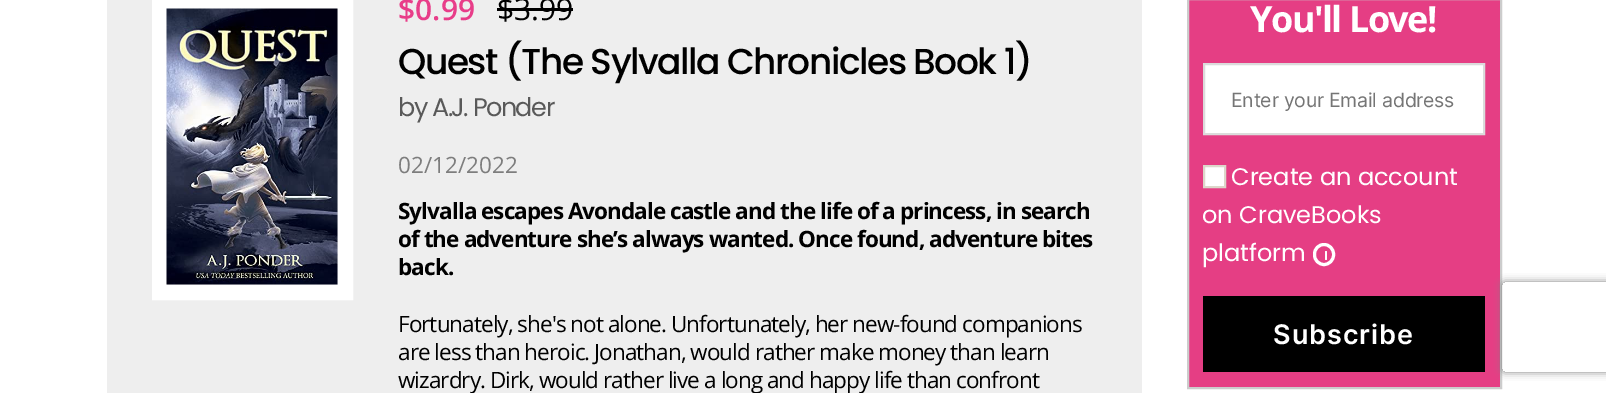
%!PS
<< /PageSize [1606 393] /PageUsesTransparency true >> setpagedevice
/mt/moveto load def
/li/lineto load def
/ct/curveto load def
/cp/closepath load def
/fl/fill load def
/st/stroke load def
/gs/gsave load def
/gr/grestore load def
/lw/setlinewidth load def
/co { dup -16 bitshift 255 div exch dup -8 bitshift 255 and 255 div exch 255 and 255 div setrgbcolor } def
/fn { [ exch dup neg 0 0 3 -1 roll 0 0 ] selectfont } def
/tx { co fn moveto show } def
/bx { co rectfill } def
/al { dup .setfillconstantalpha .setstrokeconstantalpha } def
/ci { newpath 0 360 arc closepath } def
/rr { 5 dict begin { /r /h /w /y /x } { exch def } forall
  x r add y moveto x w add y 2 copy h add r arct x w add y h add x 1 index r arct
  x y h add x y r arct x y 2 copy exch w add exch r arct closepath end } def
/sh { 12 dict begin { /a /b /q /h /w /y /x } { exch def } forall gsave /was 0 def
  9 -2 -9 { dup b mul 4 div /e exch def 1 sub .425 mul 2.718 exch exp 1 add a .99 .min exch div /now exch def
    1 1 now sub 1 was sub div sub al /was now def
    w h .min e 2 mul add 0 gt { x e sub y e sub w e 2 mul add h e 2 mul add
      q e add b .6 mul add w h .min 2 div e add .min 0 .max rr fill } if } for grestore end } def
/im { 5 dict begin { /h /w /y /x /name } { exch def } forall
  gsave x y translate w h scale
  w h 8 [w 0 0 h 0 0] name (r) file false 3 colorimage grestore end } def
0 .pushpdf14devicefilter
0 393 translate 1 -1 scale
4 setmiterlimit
0 0 1606 393 16#FFFFFF bx
107 0 1035 393 16#EEEEEE bx
16#FFFFFF co
15 lw
159.5 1.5 186 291 rectstroke
(media/1.raw) 166 8 172 277 im
497 8 76 3 16#000000 bx
16#E53E84 co
1188 -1 mt 1501 -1 li 1501 388 li 1188 388 li cp gs fl gr
16#CCCCCC co
2 lw
st
16#FFFFFF co
1204 64 mt 1484 64 li 1484 134 li 1204 134 li cp gs fl gr
16#DBDBDB co
st
16#FFFFFF co
1204 166 mt 1225 166 li 1225 187 li 1204 187 li cp gs fl gr
16#DCD7CA co
st
16#FFFFFF co
3 lw
1314.5 244.5 19 20 9.5 rr st
1326 252 1 ci fl
1325 252 2 8 1 rr fl
1203 296 282 76 16#000000 bx
gs
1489 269 mt 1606 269 li 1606 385 li 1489 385 li cp 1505 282 mt 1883 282 li 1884.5 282 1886 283.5 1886 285 ct 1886 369 li 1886 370.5 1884.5 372 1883 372 ct 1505 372 li 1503.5 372 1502 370.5 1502 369 ct 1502 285 li 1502 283.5 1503.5 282 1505 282 ct cp eoclip newpath
16#808080 co
1502 282 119 90 3 4 1 sh
gr
($0.99) 398 20 /OpenSans-SemiBold 30 16#E83D89 tx
($3.99) 497 20 /OpenSans-Regular 30 16#000000 tx
/Poppins-Medium 36 fn
398 74 mt -1.5 0 (Quest \(The Sylvalla Chronicles Book 1\)) ashow
/Poppins-Regular 25.5 fn
16#595959 co
398 116 mt -1.5 0 (by A.J. Ponder) ashow
(02/12/2022) 398 173 /OpenSans-Regular 22.5 16#7D7D7D tx
/OpenSans-Bold 22.5 fn
16#000000 co
398 219 mt -.95 0 (Sylvalla escapes Avondale castle and the life of a princess, in search) ashow
398 247 mt -.95 0 (of the adventure she’s always wanted. Once found, adventure bites) ashow
398 275 mt -.95 0 (back.) ashow
/OpenSans-Regular 22.5 fn
398 332 mt -.95 0 (Fortunately, she's not alone. Unfortunately, her new-found companions) ashow
398 360 mt -.95 0 (are less than heroic. Jonathan, would rather make money than learn) ashow
398 388 mt -.95 0 (wizardry. Dirk, would rather live a long and happy life than confront) ashow
/OpenSans-Bold 36 fn
16#FFFFFF co
1250 32 mt -1.5 0 (You'll Love!) ashow
/Inter-Regular 19.5 fn
16#757575 co
1231 107 mt -.25 0 (Enter your Email address) ashow
(Create an account) 1231 185 /Poppins-Regular 24 16#FFFFFF tx
(on CraveBooks) 1202 223 /Poppins-Regular 24 16#FFFFFF tx
(platform) 1202 261 /Poppins-Regular 24 16#FFFFFF tx
/Inter-SemiBold 27 fn
1273 344 mt 1 0 (Subscribe) ashow
.poppdf14devicefilter showpage
